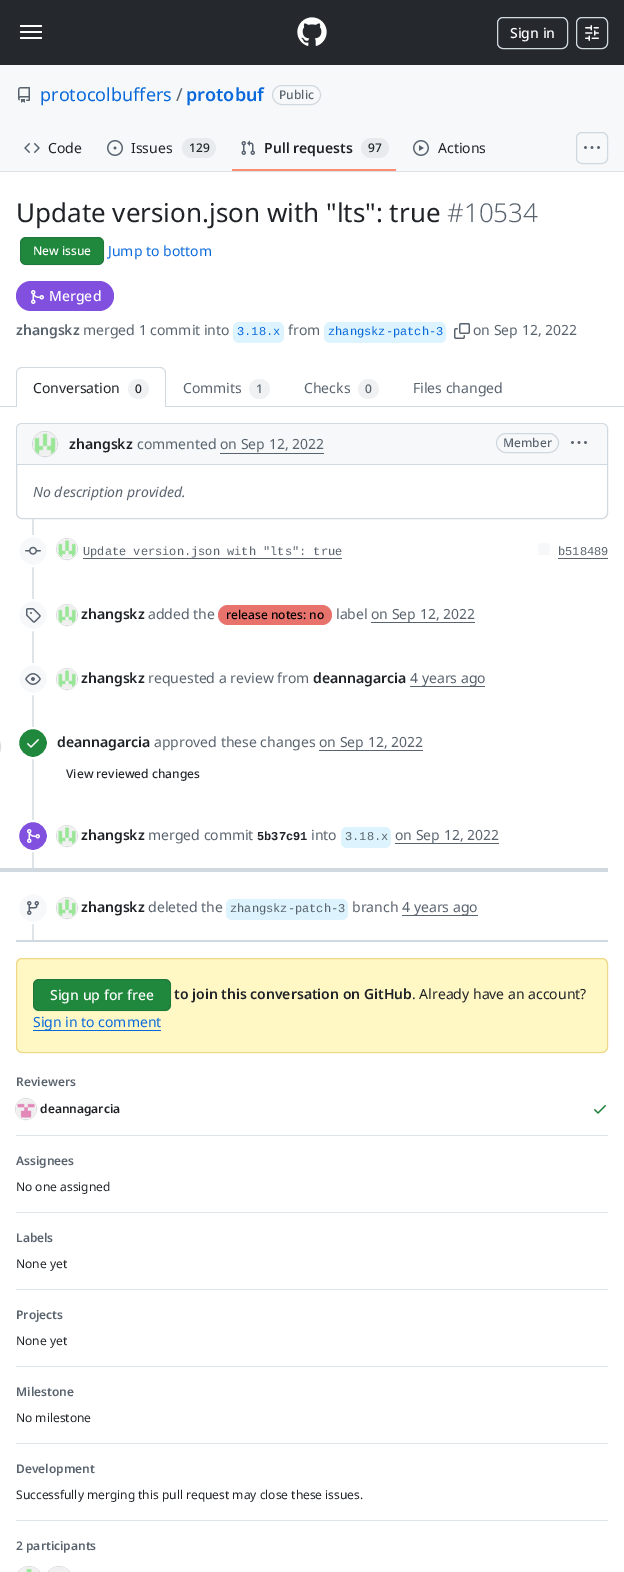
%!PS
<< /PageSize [624 1572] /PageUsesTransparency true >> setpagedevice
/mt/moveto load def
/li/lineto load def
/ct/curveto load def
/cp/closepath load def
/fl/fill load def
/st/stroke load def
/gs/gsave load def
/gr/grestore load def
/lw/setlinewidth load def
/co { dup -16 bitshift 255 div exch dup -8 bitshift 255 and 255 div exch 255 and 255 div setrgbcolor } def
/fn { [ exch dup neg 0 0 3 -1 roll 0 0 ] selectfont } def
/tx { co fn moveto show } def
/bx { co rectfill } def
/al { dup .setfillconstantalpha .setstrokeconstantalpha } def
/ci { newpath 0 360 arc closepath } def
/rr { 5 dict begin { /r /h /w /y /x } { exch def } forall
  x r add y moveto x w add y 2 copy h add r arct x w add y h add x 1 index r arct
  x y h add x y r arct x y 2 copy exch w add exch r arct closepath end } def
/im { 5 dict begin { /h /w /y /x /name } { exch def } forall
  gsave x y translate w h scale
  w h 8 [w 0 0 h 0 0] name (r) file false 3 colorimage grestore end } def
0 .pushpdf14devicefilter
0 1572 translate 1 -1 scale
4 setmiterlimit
0 0 624 1572 16#FFFFFF bx
0 0 624 65 16#25292E bx
16#FFFFFF co
20 25 22 2 1 rr fl
20 31 22 2 1 rr fl
20 37 22 2 1 rr fl
(media/1.raw) 297 17 30 29 im
16#D1D9E0 co
497.5 17.5 70 31 5.5 rr st
576.5 17.5 31 31 5.5 rr st
(media/2.raw) 585 25 14 16 im
0 65 624 106 16#F6F8FA bx
(media/3.raw) 18 87 12 16 im
16#D1D9E0 co
272.5 85.5 48 19 9.5 rr st
0 171 624 1 16#DCE2E8 bx
(media/4.raw) 24 143 16 10 im
(media/5.raw) 107 140 16 16 im
16#E8EBEE co
182 138 34 20 10 rr fl
(media/6.raw) 241 140 14 15 im
361 138 28 20 10 rr fl
16#FD8C73 co
232 169 164 2 1 rr fl
(media/7.raw) 413 140 16 16 im
16#D1D9E0 co
576.5 132.5 31 31 5.5 rr st
(media/8.raw) 584 146 16 3 im
16#1F883D co
20 237 84 28 6 rr fl
0.15 al
16#1F2328 co
20.5 237.5 83 27 5.5 rr st
1 al
16#8250DF co
16 281 98 30 15 rr fl
(media/9.raw) 31 290 13 14 im
16#DDF4FF co
233 322 51 21 6 rr fl
324 322 122 21 6 rr fl
(media/10.raw) 454 323 16 16 im
0 406 624 1 16#D1D9E0 bx
16#FFFFFF co
22 367 mt 160 367 li 163.5 367 166 369.5 166 373 ct 166 407 li 16 407 li 16 373 li 16 369.5 18.5 367 22 367 ct cp fl
16#D1D9E0 co
22 367 mt 160 367 li 163 367 166 370 166 373 ct 166 407 li 16 407 li 16 373 li 16 370 19 367 22 367 ct cp 22 368 mt 160 368 li 163 368 165 370 165 373 ct 165 407 li 17 407 li 17 373 li 17 370 19 368 22 368 ct cp eofill
16#F0F1F3 co
128 379 21 20 10 rr fl
249 379 21 20 10 rr fl
358 379 21 20 10 rr fl
16#D1D9E0 co
16.5 423.5 591 95 5.5 rr st
16#F6F8FA co
23 424 mt 601 424 li 604.5 424 607 426.5 607 430 ct 607 465 li 17 465 li 17 430 li 17 426.5 19.5 424 23 424 ct cp fl
17 464 590 1 16#D1D9E0 bx
16#D6D8DB co
45 444 12.5 ci st
(media/11.raw) 33 432 24 24 im
220 453 104 1 16#59636E bx
16#D1D9E0 co
496.5 433.5 62 19 9.5 rr st
(media/8.raw) 571 441 16 3 im
32 519 2 349 16#DFE4E9 bx
16#F6F8FA co
33 551 15 ci gs fl gr
16#FFFFFF co
2 lw
st
(media/12.raw) 25 546 16 9 im
16#DDDEDF co
1 lw
67 549 10.5 ci st
16#FFFFFF co
67 549 10 ci fl
(media/13.raw) 57 539 20 20 im
83 558 259 1 16#59636E bx
538 543 12 12 16#F6F8FA bx
558 558 50 1 16#59636E bx
16#F6F8FA co
33 615 15 ci gs fl gr
16#FFFFFF co
2 lw
st
(media/14.raw) 26 608 15 15 im
16#DDDEDF co
1 lw
67 615 10.5 ci st
16#FFFFFF co
67 615 10 ci fl
(media/15.raw) 57 605 20 20 im
16#E8736D co
218 605 114 20 10 rr fl
371 622 104 1 16#59636E bx
16#F6F8FA co
33 679 15 ci gs fl gr
16#FFFFFF co
2 lw
st
(media/16.raw) 25 673 16 12 im
16#DDDEDF co
1 lw
67 679 10.5 ci st
16#FFFFFF co
67 679 10 ci fl
(media/15.raw) 57 669 20 20 im
410 686 75 1 16#59636E bx
16#DDDEDF co
-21.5 726.5 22 41 20.5 rr st
16#1F883D co
33 743 15 ci gs fl gr
16#FFFFFF co
2 lw
st
(media/17.raw) 27 739 12 9 im
319 750 104 1 16#59636E bx
16#8250DF co
33 836 15 ci gs fl gr
16#FFFFFF co
st
(media/9.raw) 27 829 13 14 im
16#DDDEDF co
1 lw
67 836 10.5 ci st
16#FFFFFF co
67 836 10 ci fl
(media/15.raw) 57 826 20 20 im
16#DDF4FF co
341 827 50 21 6 rr fl
395 843 104 1 16#59636E bx
0 868 608 4 16#D1D9E0 bx
32 892 2 48 16#DFE4E9 bx
16#F6F8FA co
33 908 15 ci gs fl gr
16#FFFFFF co
2 lw
st
(media/18.raw) 27 901 12 14 im
16#DDDEDF co
1 lw
67 908 10.5 ci st
16#FFFFFF co
67 908 10 ci fl
(media/15.raw) 57 898 20 20 im
16#DDF4FF co
226 899 122 21 6 rr fl
402 915 76 1 16#59636E bx
16 940 592 2 16#D1D9E0 bx
16#FFF8C5 co
16 958 592 95 6 rr fl
0.4 al
16#D4A72C co
16.5 958.5 591 94 5.5 rr st
1 al
16#1F883D co
33 979 138 32 6 rr fl
0.15 al
16#1F2328 co
33.5 979.5 137 31 5.5 rr st
1 al
33 1030 128 1 16#0969DA bx
16#DDDEDF co
26 1109 10.5 ci st
16#FFFFFF co
26 1109 10 ci fl
(media/19.raw) 16 1099 20 20 im
(media/20.raw) 594 1105 12 9 im
16 1135 592 1 16#DFE4E9 bx
16 1212 592 1 16#DFE4E9 bx
16 1289 592 1 16#DFE4E9 bx
16 1366 592 1 16#DFE4E9 bx
16 1443 592 1 16#DFE4E9 bx
16 1520 592 1 16#DFE4E9 bx
16#DDDEDF co
15.5 1566.5 27 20 13.5 rr st
(media/21.raw) 19 1567 20 5 im
45.5 1566.5 27 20 13.5 rr st
(media/22.raw) 49 1567 20 5 im
(Sign in) 510 38 /NotoSans-Medium 14 16#FFFFFF tx
(protocolbuffers) 40 101 /NotoSans-Regular 18 16#0969DA tx
(/) 176 101 /NotoSans-Regular 18 16#59636E tx
(protobuf) 186 101 /NotoSans-SemiBold 18 16#0969DA tx
(Public) 279 99 /NotoSans-Medium 12 16#59636E tx
(Code) 48 153 /NotoSans-Regular 14 16#1F2328 tx
(Issues) 131 153 /NotoSans-Regular 14 16#1F2328 tx
(129) 189 152 /NotoSans-Medium 12 16#1F2328 tx
(Pull requests) 264 153 /NotoSans-SemiBold 14 16#1F2328 tx
(97) 368 152 /NotoSans-Medium 12 16#1F2328 tx
(Actions) 438 153 /NotoSans-Regular 14 16#1F2328 tx
(Update version.json with "lts": true) 16 222 /NotoSans-Regular 26 16#1F2328 tx
(#10534) 447 222 /NotoSans-Light 26 16#59636E tx
(New issue) 33 255 /NotoSans-Medium 12 16#FFFFFF tx
(Jump to bottom) 108 256 /NotoSans-Regular 14 16#0969DA tx
(Merged) 49 301 /NotoSans-Medium 14 16#FFFFFF tx
(zhangskz) 16 335 /NotoSans-SemiBold 14 16#59636E tx
(merged 1 commit into) 83 335 /NotoSans-Regular 14 16#59636E tx
(3.18.x) 237 335 /LiberationMono-Regular 12 16#0969DA tx
(from) 288 335 /NotoSans-Regular 14 16#59636E tx
(zhangskz-patch-3) 328 335 /LiberationMono-Regular 12 16#0969DA tx
(on Sep 12, 2022) 473 335 /NotoSans-Regular 14 16#59636E tx
(Conversation) 33 393 /NotoSans-Regular 14 16#1F2328 tx
(0) 135 393 /NotoSans-Medium 12 16#1F2328 tx
(Commits) 183 393 /NotoSans-Regular 14 16#59636E tx
(1) 256 393 /NotoSans-Medium 12 16#59636E tx
(Checks) 304 393 /NotoSans-Regular 14 16#59636E tx
(0) 365 393 /NotoSans-Medium 12 16#59636E tx
(Files changed) 413 393 /NotoSans-Regular 14 16#59636E tx
(zhangskz) 69 449 /NotoSans-SemiBold 14 16#1F2328 tx
(commented) 137 449 /NotoSans-Regular 14 16#59636E tx
(on Sep 12, 2022) 220 449 /NotoSans-Regular 14 16#59636E tx
(Member) 503 447 /NotoSans-Medium 12 16#59636E tx
(No description provided.) 33 497 /NotoSans-Italic 14 16#59636E tx
(Update version.json with "lts": true) 83 555 /LiberationMono-Regular 12 16#59636E tx
(b518489) 558 555 /LiberationMono-Regular 12 16#59636E tx
(zhangskz) 81 619 /NotoSans-SemiBold 14 16#1F2328 tx
(added the) 148 619 /NotoSans-Regular 14 16#59636E tx
(release notes: no) 226 619 /NotoSans-Medium 12 16#000000 tx
(label) 336 619 /NotoSans-Regular 14 16#59636E tx
(on Sep 12, 2022) 371 619 /NotoSans-Regular 14 16#59636E tx
(zhangskz) 81 683 /NotoSans-SemiBold 14 16#1F2328 tx
(requested a review from) 148 683 /NotoSans-Regular 14 16#59636E tx
(deannagarcia) 313 683 /NotoSans-SemiBold 14 16#1F2328 tx
(4 years ago) 410 683 /NotoSans-Regular 14 16#59636E tx
(deannagarcia) 57 747 /NotoSans-SemiBold 14 16#1F2328 tx
(approved these changes) 154 747 /NotoSans-Regular 14 16#59636E tx
(on Sep 12, 2022) 319 747 /NotoSans-Regular 14 16#59636E tx
(View reviewed changes) 66 778 /NotoSans-Medium 12 16#25292E tx
(zhangskz) 81 840 /NotoSans-SemiBold 14 16#1F2328 tx
(merged commit) 148 840 /NotoSans-Regular 14 16#59636E tx
(5b37c91) 257 840 /LiberationMono-Bold 12 16#1F2328 tx
(into) 311 840 /NotoSans-Regular 14 16#59636E tx
(3.18.x) 345 840 /LiberationMono-Regular 12 16#59636E tx
(on Sep 12, 2022) 395 840 /NotoSans-Regular 14 16#59636E tx
(zhangskz) 81 912 /NotoSans-SemiBold 14 16#1F2328 tx
(deleted the) 148 912 /NotoSans-Regular 14 16#59636E tx
(zhangskz-patch-3) 230 912 /LiberationMono-Regular 12 16#59636E tx
(branch) 352 912 /NotoSans-Regular 14 16#59636E tx
(4 years ago) 402 912 /NotoSans-Regular 14 16#59636E tx
(Sign up for free) 50 1000 /NotoSans-Medium 14 16#FFFFFF tx
(to join this conversation on GitHub) 174 999 /NotoSans-SemiBold 14 16#1F2328 tx
(. Already have an account?) 412 999 /NotoSans-Regular 14 16#1F2328 tx
(Sign in to comment) 33 1027 /NotoSans-Regular 14 16#0969DA tx
(Reviewers) 16 1086 /NotoSans-SemiBold 12 16#59636E tx
(deannagarcia) 40 1113 /NotoSans-SemiBold 12 16#1F2328 tx
(Assignees) 16 1165 /NotoSans-SemiBold 12 16#59636E tx
(No one assigned) 16 1191 /NotoSans-Regular 12 16#1F2328 tx
(Labels) 16 1242 /NotoSans-SemiBold 12 16#59636E tx
(None yet) 16 1268 /NotoSans-Regular 12 16#1F2328 tx
(Projects) 16 1319 /NotoSans-SemiBold 12 16#59636E tx
(None yet) 16 1345 /NotoSans-Regular 12 16#1F2328 tx
(Milestone) 16 1396 /NotoSans-SemiBold 12 16#59636E tx
(No milestone) 16 1422 /NotoSans-Regular 12 16#1F2328 tx
(Development) 16 1473 /NotoSans-SemiBold 12 16#59636E tx
(Successfully merging this pull request may close these issues.) 16 1499 /NotoSans-Regular 12 16#1F2328 tx
(2 participants) 16 1550 /NotoSans-SemiBold 12 16#59636E tx
.poppdf14devicefilter showpage
